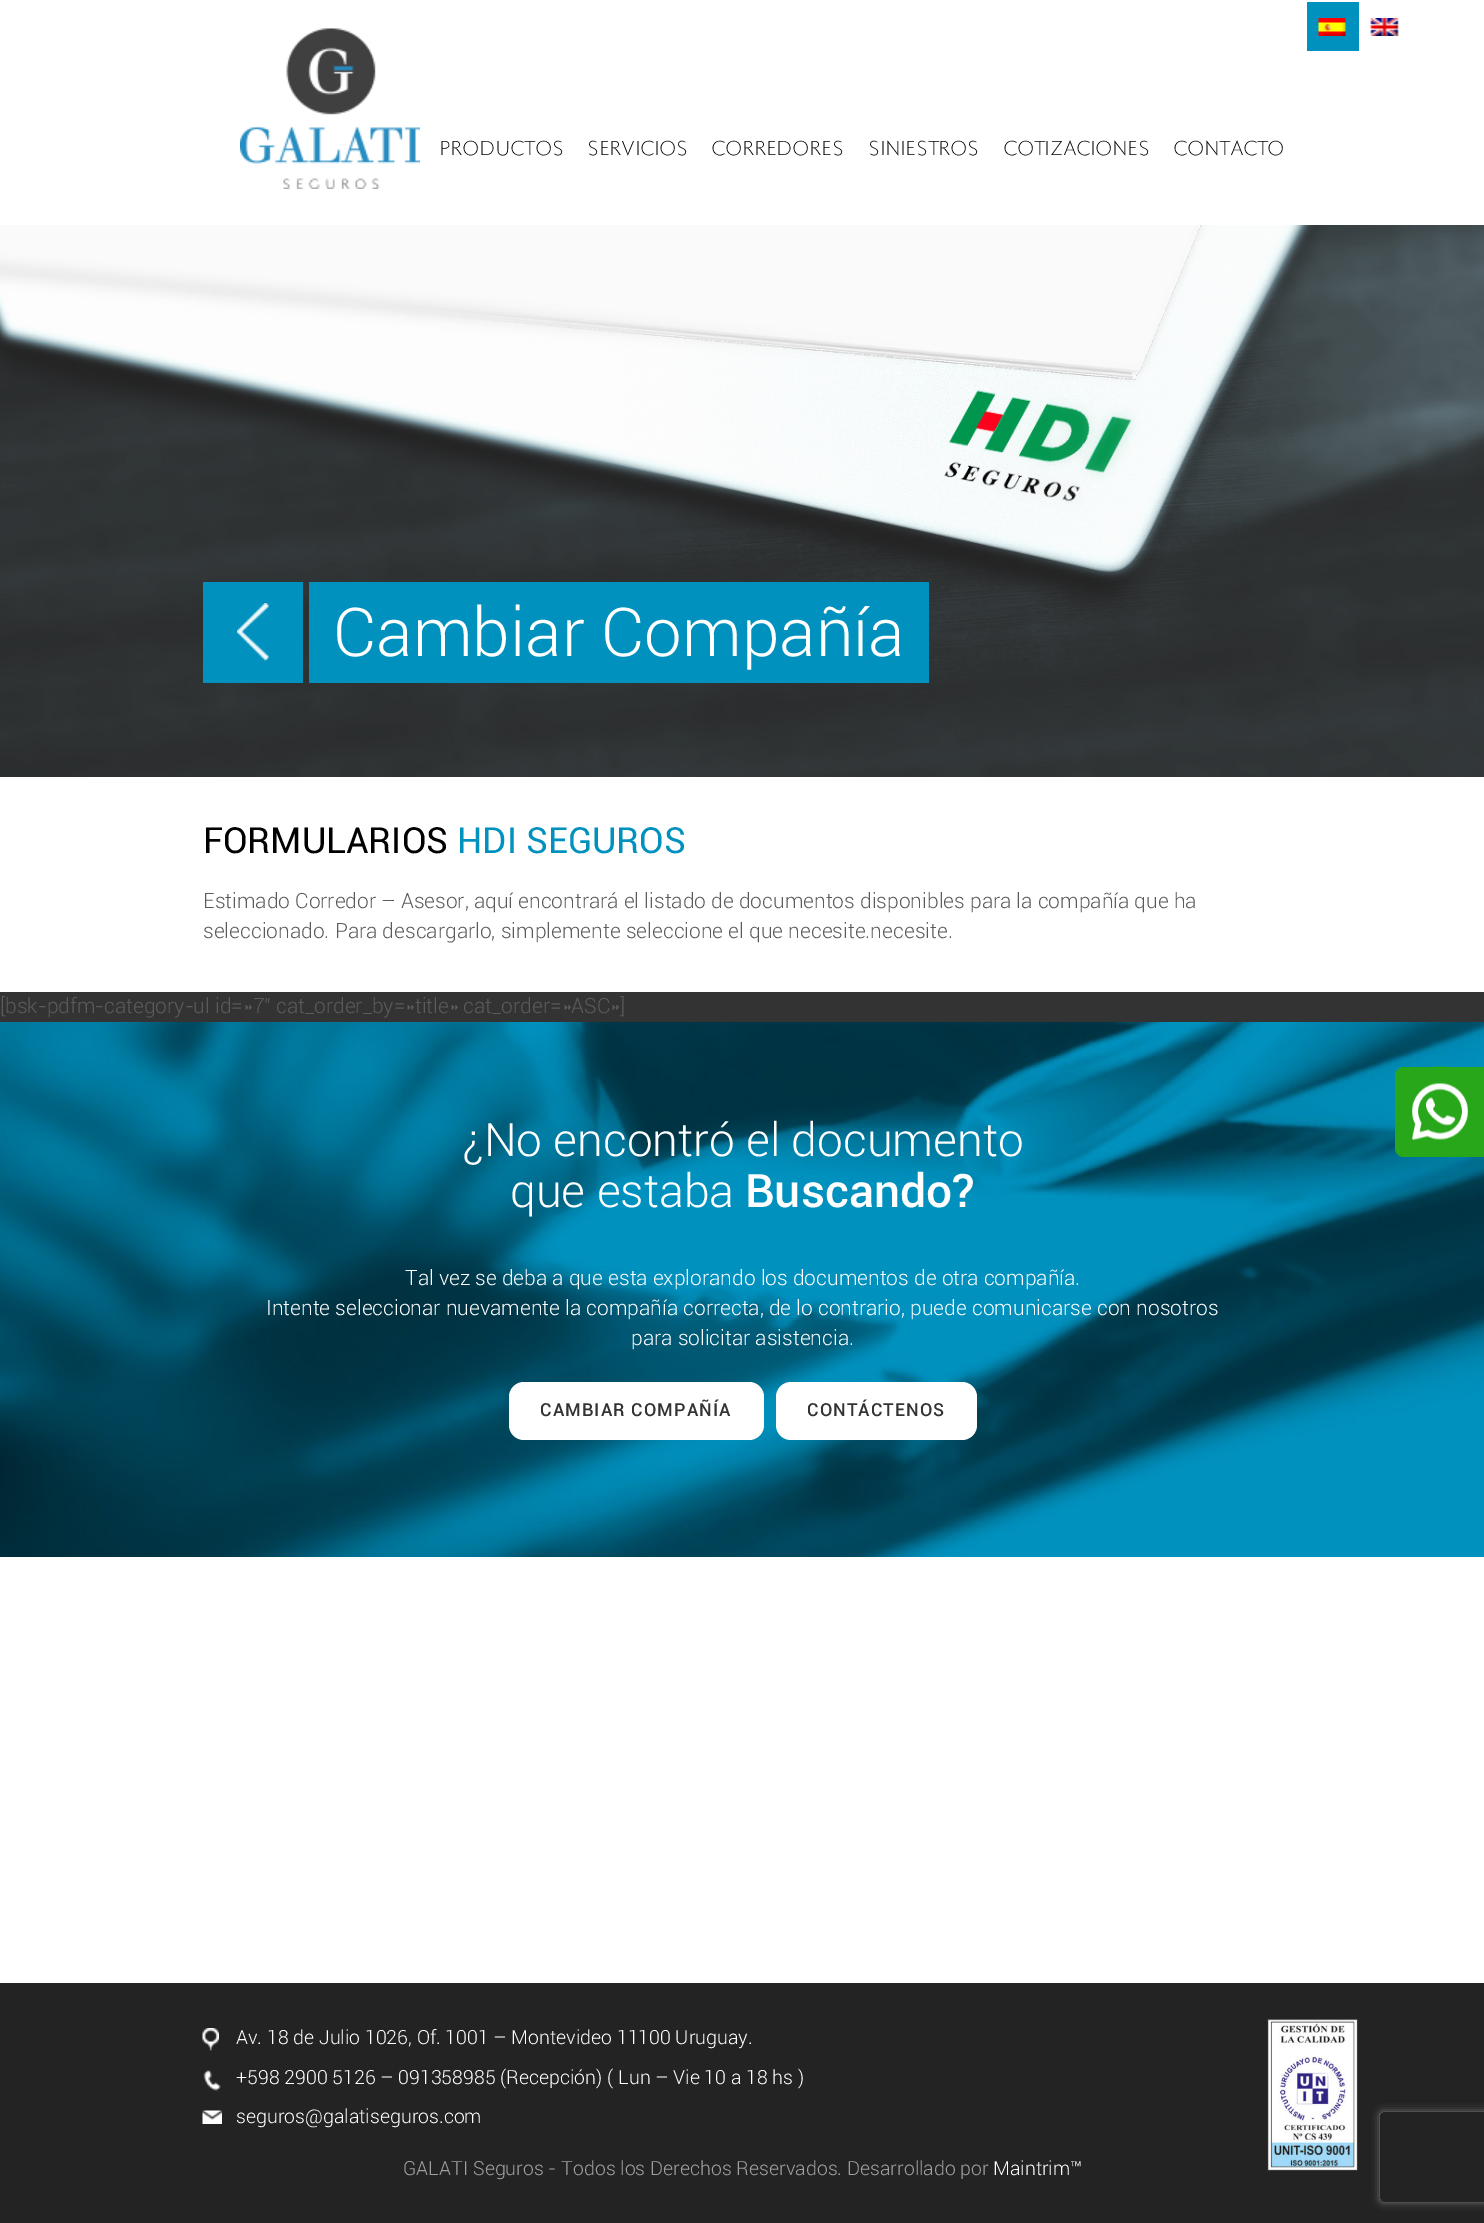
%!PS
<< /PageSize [1484 2223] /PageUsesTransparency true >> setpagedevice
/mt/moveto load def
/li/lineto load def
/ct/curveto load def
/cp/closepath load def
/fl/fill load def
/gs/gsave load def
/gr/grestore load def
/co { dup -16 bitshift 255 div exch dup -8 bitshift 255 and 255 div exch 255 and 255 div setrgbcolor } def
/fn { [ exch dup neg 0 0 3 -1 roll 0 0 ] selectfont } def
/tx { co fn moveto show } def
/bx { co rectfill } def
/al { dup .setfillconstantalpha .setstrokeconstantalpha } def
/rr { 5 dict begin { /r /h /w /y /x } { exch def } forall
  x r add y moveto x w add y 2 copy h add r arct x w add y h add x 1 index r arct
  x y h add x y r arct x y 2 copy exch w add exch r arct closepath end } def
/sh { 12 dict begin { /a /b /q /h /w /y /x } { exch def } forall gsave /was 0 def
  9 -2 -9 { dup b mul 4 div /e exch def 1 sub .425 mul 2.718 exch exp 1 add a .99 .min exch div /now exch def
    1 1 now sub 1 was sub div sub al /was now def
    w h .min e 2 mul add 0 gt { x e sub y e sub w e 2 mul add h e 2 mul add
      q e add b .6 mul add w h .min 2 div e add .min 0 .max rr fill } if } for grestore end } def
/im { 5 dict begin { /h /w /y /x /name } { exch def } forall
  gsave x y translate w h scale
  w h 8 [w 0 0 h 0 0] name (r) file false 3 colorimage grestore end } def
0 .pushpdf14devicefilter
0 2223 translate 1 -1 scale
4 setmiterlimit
0 0 1484 2223 16#232323 bx
0 0 1484 225 16#FFFFFF bx
(media/1.raw) 240 28 180 161 im
1307 2 52 49 16#0091BE bx
(media/2.raw) 1318 18 28 18 im
(media/3.raw) 1370 18 29 18 im
0 777 1484 1206 16#FFFFFF bx
(media/7.raw) 0 1022 1484 535 im
16#29A71A co
1404 1067 mt 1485 1067 li 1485 1157 li 1404 1157 li 1399 1157 1395 1153 1395 1148 ct 1395 1076 li 1395 1071 1399 1067 1404 1067 ct cp fl
(media/4.raw) 1412 1066 56 74 im
(media/5.raw) 0 225 1484 552 im
203 582 100 101 16#0091BE bx
(media/6.raw) 237 603 32 58 im
309 582 620 101 16#0091BE bx
0 992 1484 30 16#333333 bx
16#FFFFFF co
509 1382 255 58 15 rr fl
776 1382 201 58 15 rr fl
(media/8.raw) 202 2028 17 23 im
(media/9.raw) 203 2070 18 21 im
(media/10.raw) 202 2110 20 14 im
(media/11.raw) 1267 2019 91 152 im
gs
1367 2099 mt 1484 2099 li 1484 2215 li 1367 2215 li cp 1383 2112 mt 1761 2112 li 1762.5 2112 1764 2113.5 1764 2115 ct 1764 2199 li 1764 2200.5 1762.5 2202 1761 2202 ct 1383 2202 li 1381.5 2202 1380 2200.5 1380 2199 ct 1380 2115 li 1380 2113.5 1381.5 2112 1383 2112 ct cp eoclip newpath
16#808080 co
1380 2112 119 90 3 4 1 sh
gr
(PRODUCTOS) 440 155 /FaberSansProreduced-Light 21 16#000000 tx
(SERVICIOS) 588 155 /FaberSansProreduced-Light 21 16#000000 tx
(CORREDORES) 712 155 /FaberSansProreduced-Light 21 16#000000 tx
(SINIESTROS) 869 155 /FaberSansProreduced-Light 21 16#000000 tx
(COTIZACIONES) 1004 155 /FaberSansProreduced-Light 21 16#000000 tx
(CONTACTO) 1174 155 /FaberSansProreduced-Light 21 16#000000 tx
(Cambiar Compañía) 333 656 /Roboto-Light 67.5 16#FFFFFF tx
(FORMULARIOS) 203 853 /Roboto-Regular 36 16#000000 tx
(HDI SEGUROS) 457 853 /Roboto-Regular 36 16#0091BE tx
(Estimado Corredor – Asesor, aquí encontrará el listado de documentos disponibles para la compañía que ha) 203 908 /Roboto-Light 21 16#5B5B5B tx
(seleccionado. Para descargarlo, simplemente seleccione el que necesite.necesite.) 203 938 /Roboto-Light 21 16#5B5B5B tx
([bsk-pdfm-category-ul id=»7″ cat_order_by=»title» cat_order=»ASC»]) 0 1013 /Roboto-Light 21 16#5B5B5B tx
(¿No encontró el documento) 462 1156 /Roboto-Light 46.25 16#FFFFFF tx
(que estaba) 510 1207 /Roboto-Light 46.25 16#FFFFFF tx
(Buscando?) 745 1207 /Roboto-Medium 46.25 16#FFFFFF tx
(Tal vez se deba a que esta explorando los documentos de otra compañía.) 405 1285 /Roboto-Light 21 16#FFFFFF tx
(Intente seleccionar nuevamente la compañía correcta, de lo contrario, puede comunicarse con nosotros) 266 1315 /Roboto-Light 21 16#FFFFFF tx
(para solicitar asistencia.) 631 1345 /Roboto-Light 21 16#FFFFFF tx
/Roboto-Medium 18 fn
16#333333 co
540 1416 mt 1.1 0 (CAMBIAR COMPAÑÍA) ashow
807 1416 mt 1.1 0 (CONTÁCTENOS) ashow
(Av. 18 de Julio 1026, Of. 1001 – Montevideo 11100 Uruguay.) 236 2044 /Roboto-Light 19.5 16#FFFFFF tx
(+598 2900 5126 – 091358985 \(Recepción\) \( Lun – Vie 10 a 18 hs \)) 236 2084 /Roboto-Light 19.5 16#FFFFFF tx
(seguros@galatiseguros.com) 236 2123 /Roboto-Light 19.5 16#FFFFFF tx
(GALATI Seguros - Todos los Derechos Reservados. Desarrollado por) 403 2175 /Roboto-Light 19.5 16#A0A0A0 tx
(Maintrim™) 993 2175 /Roboto-Light 19.5 16#FFFFFF tx
.poppdf14devicefilter showpage
